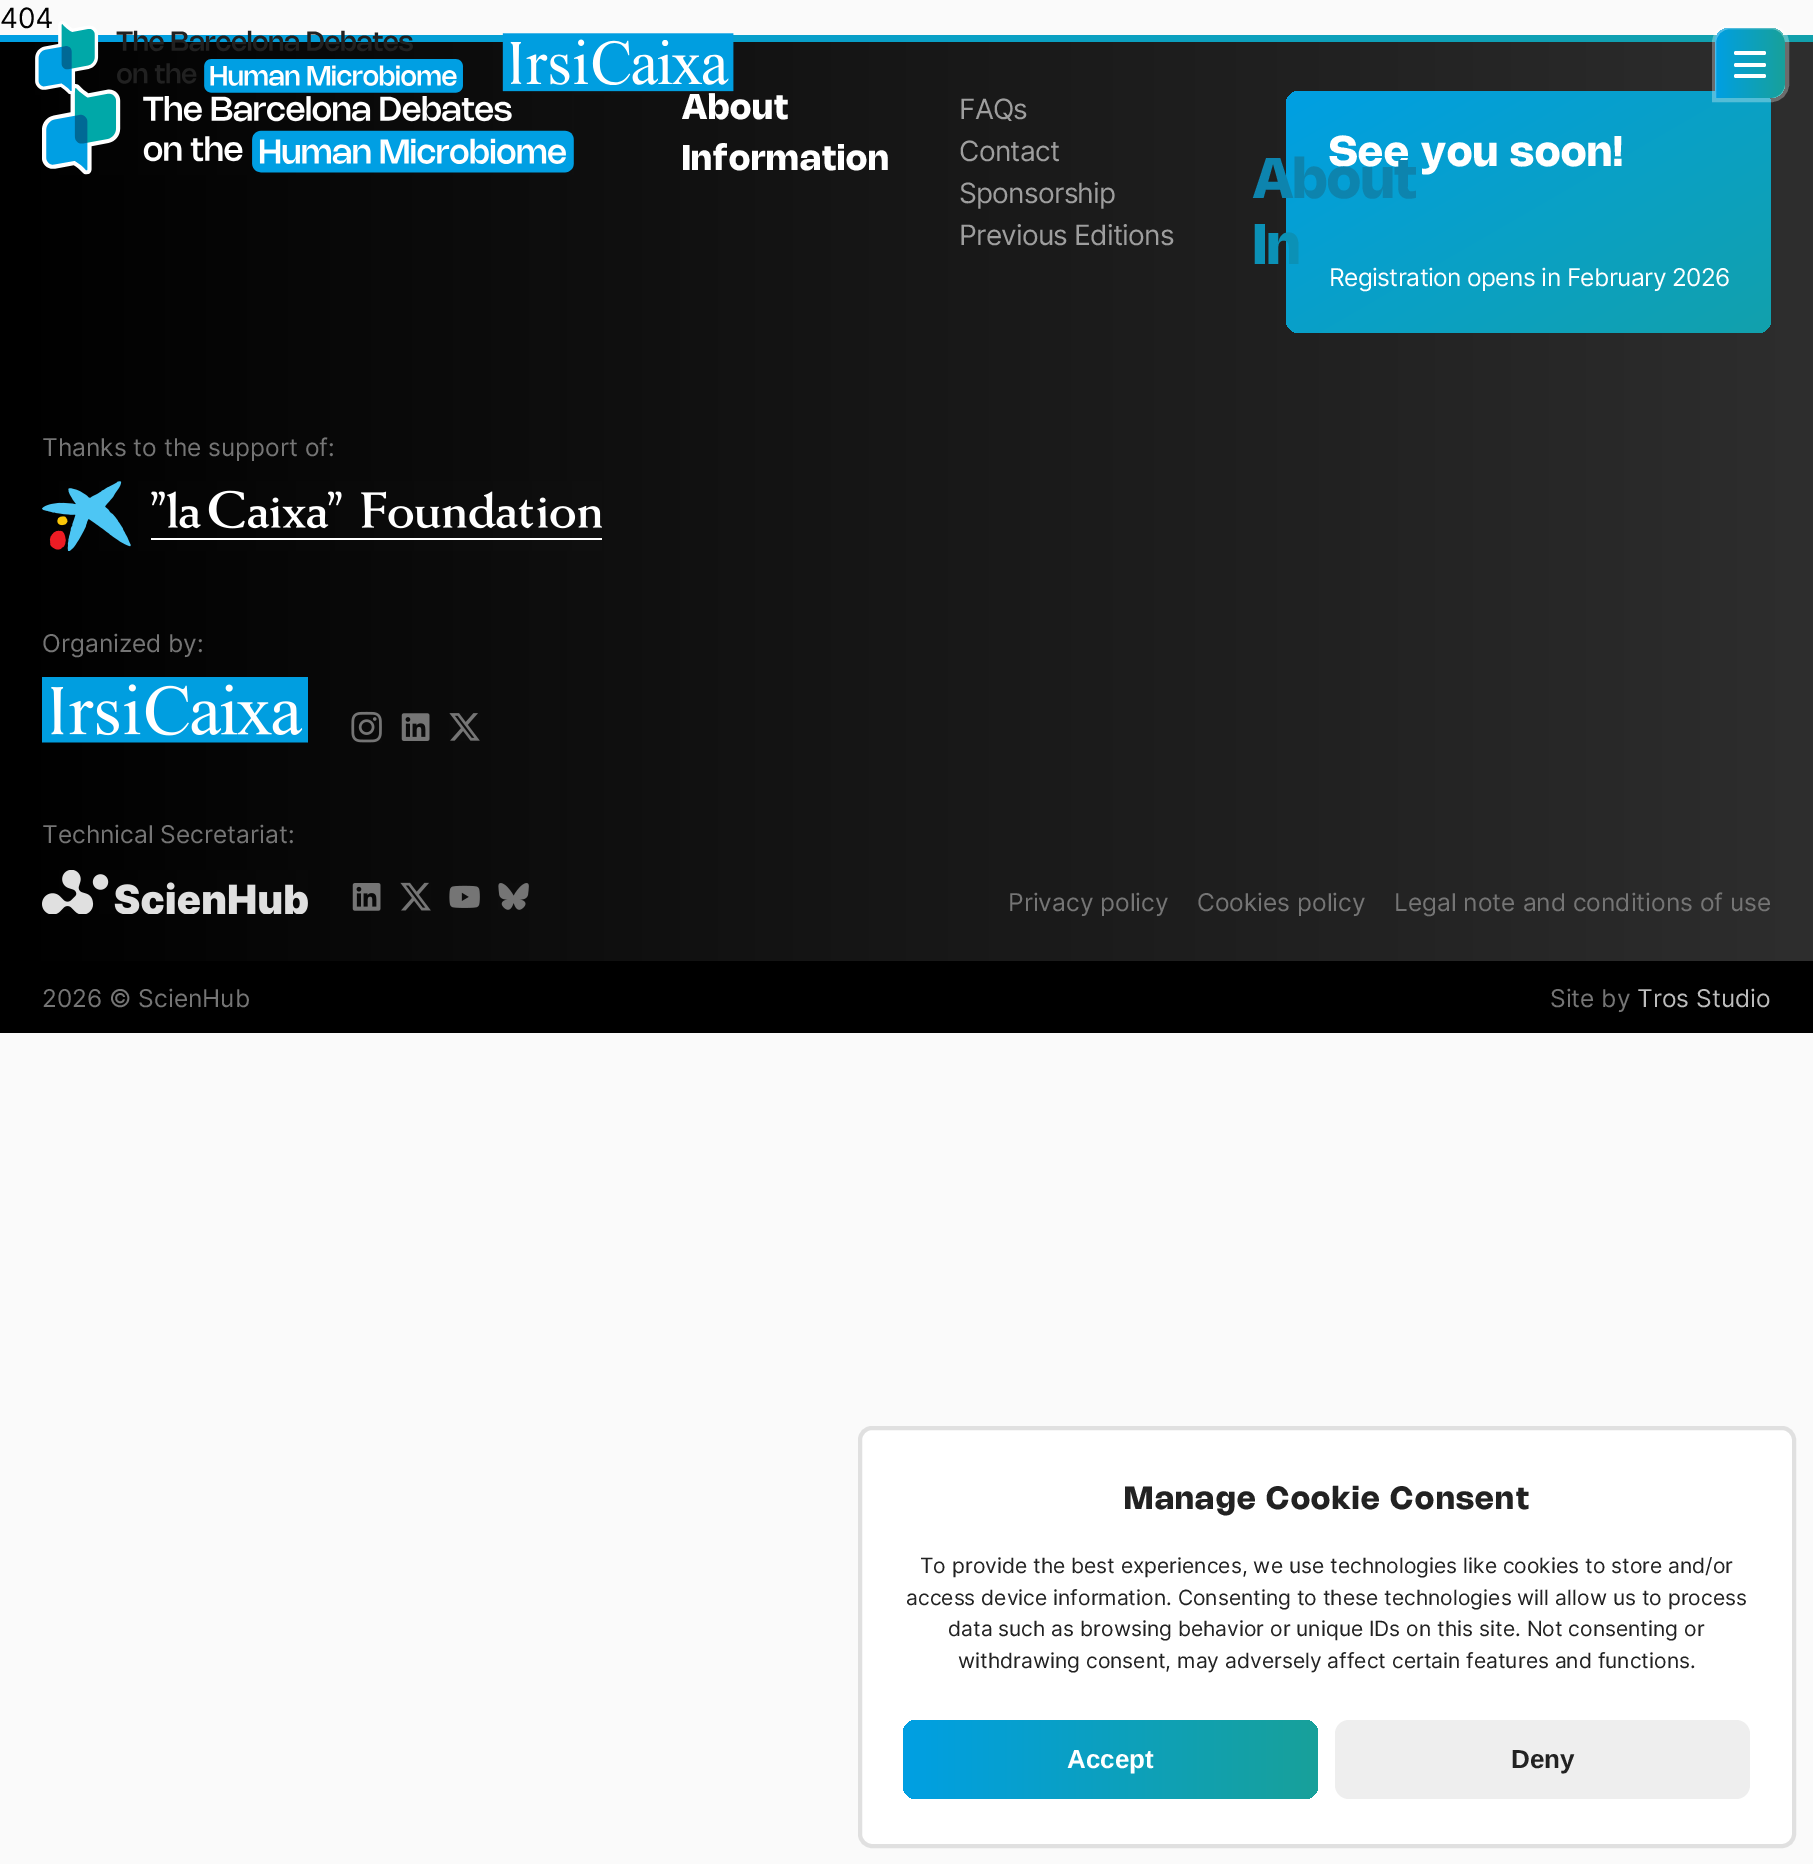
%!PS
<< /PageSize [1813 1864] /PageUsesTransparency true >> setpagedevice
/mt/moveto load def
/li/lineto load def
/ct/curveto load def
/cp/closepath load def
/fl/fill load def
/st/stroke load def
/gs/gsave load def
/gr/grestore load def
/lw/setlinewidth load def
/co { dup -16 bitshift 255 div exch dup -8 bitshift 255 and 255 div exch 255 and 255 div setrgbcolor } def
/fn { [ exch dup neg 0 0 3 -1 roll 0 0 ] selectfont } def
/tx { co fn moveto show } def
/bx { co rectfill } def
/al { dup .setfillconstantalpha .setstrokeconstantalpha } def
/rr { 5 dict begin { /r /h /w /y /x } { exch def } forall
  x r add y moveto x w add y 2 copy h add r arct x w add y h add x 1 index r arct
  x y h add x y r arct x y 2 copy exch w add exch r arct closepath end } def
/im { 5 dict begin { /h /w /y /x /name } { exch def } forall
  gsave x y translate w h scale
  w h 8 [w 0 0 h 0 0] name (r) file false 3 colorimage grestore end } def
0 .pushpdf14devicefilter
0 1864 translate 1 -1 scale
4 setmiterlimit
0 0 1813 1864 16#FAFAFA bx
gs 0 42 mt 1813 42 li 1813 961 li 0 961 li cp clip newpath
<< /ShadingType 2 /ColorSpace /DeviceRGB /Coords [0 534 1813 534] /Extend [true true] /Function << /FunctionType 2 /Domain [0 1] /C0 [0 0 0] /C1 [.18 .18 .18] /N 1 >> >> shfill gr
gs 0 35 mt 1813 35 li 1813 42 li 0 42 li cp clip newpath
<< /ShadingType 2 /ColorSpace /DeviceRGB /Coords [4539 1630 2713 -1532] /Extend [true true] /Function << /FunctionType 3 /Domain [0 1] /Functions [<< /FunctionType 2 /Domain [0 1] /C0 [.094 .631 .604] /C1 [0 .624 .89] /N 1 >> << /FunctionType 2 /Domain [0 1] /C0 [0 .624 .89] /C1 [.094 .631 .604] /N 1 >> << /FunctionType 2 /Domain [0 1] /C0 [.094 .631 .604] /C1 [0 .624 .89] /N 1 >>] /Bounds [.33 .67] /Encode [0 1 0 1 0 1] >> >> shfill gr
(media/1.raw) 42 84 532 91 im
gs 1286 91 485 242 14 rr clip newpath
<< /ShadingType 2 /ColorSpace /DeviceRGB /Coords [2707 1356 1804 -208] /Extend [true true] /Function << /FunctionType 3 /Domain [0 1] /Functions [<< /FunctionType 2 /Domain [0 1] /C0 [.094 .631 .604] /C1 [0 .624 .89] /N 1 >> << /FunctionType 2 /Domain [0 1] /C0 [0 .624 .89] /C1 [.094 .631 .604] /N 1 >> << /FunctionType 2 /Domain [0 1] /C0 [.094 .631 .604] /C1 [0 .624 .89] /N 1 >>] /Bounds [.33 .67] /Encode [0 1 0 1 0 1] >> >> shfill gr
(media/2.raw) 42 481 560 70 im
(media/3.raw) 42 677 266 66 im
(media/4.raw) 351 711 31 32 im
(media/5.raw) 401 713 29 28 im
(media/6.raw) 449 713 31 28 im
(media/7.raw) 42 870 266 44 im
(media/8.raw) 352 883 29 28 im
(media/9.raw) 400 882 31 29 im
(media/10.raw) 449 885 31 23 im
(media/11.raw) 498 883 31 27 im
0 961 1813 72 16#000000 bx
gs 1729 28 mt 1771 28 li 1778.5 28 1785 34.5 1785 42 ct 1785 84 li 1785 91.5 1778.5 98 1771 98 ct 1715 98 li 1715 42 li 1715 34.5 1721.5 28 1729 28 ct cp clip newpath
<< /ShadingType 2 /ColorSpace /DeviceRGB /Coords [1715 63 1785 63] /Extend [true true] /Function << /FunctionType 2 /Domain [0 1] /C0 [0 .624 .89] /C1 [.094 .631 .604] /N 1 >> >> shfill gr
0.3 al
16#FFFFFF co
4 lw
1730 27 mt 1771 27 li 1780 27 1787 34 1787 43 ct 1787 84 li 1787 93 1780 100 1771 100 ct 1714 100 li 1714 43 li 1714 34 1721 27 1730 27 ct cp st
1 al
1734 51 32 4 2 rr fl
1734 63 32 4 2 rr fl
1734 74 32 4 2 rr fl
860 1428 934 418 12 rr gs fl gr
16#E0E0E0 co
st
gs 903 1720 415 79 14 rr clip newpath
<< /ShadingType 2 /ColorSpace /DeviceRGB /Coords [903 1760 1318 1760] /Extend [true true] /Function << /FunctionType 2 /Domain [0 1] /C0 [0 .624 .89] /C1 [.094 .631 .604] /N 1 >> >> shfill gr
16#EEEEEE co
1335 1720 415 79 14 rr fl
(404) 0 28 /Inter-Regular 28 16#000000 tx
/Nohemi-Bold 35 fn
16#FFFFFF co
682 119 mt .9 0 (About) ashow
682 170 mt .9 0 (Information) ashow
/Inter-Regular 28 fn
16#9E9E9E co
959 119 mt -.75 0 (FAQs) ashow
959 161 mt -.75 0 (Contact) ashow
959 203 mt -.75 0 (Sponsorship) ashow
959 245 mt -.75 0 (Previous Editions) ashow
/Nohemi-Bold 42 fn
16#FFFFFF co
1329 166 mt 1 0 (See you soon!) ashow
/Inter-Regular 24.5 fn
1329 286 mt -.6 0 (Registration opens in February 2026) ashow
(Thanks to the support of:) 42 456 /Inter-Regular 24.5 16#757575 tx
(Organized by:) 42 652 /Inter-Regular 24.5 16#757575 tx
(Technical Secretariat:) 42 843 /Inter-Regular 24.5 16#757575 tx
(Privacy policy) 1008 911 /Inter-Regular 24.5 16#757575 tx
(Cookies policy) 1197 911 /Inter-Regular 24.5 16#757575 tx
(Legal note and conditions of use) 1394 911 /Inter-Regular 24.5 16#757575 tx
(2026 © ScienHub) 42 1007 /Inter-Regular 24.5 16#757575 tx
(Site by) 1550 1007 /Inter-Regular 24.5 16#757575 tx
(Tros Studio) 1637 1007 /Inter-Regular 24.5 16#BDBDBD tx
(media/12.raw) 35 21 699 74 im
(About) 1253 198 /Nohemi-Bold 56 16#0D84AE tx
(In) 1253 264 /Nohemi-Bold 56 16#0B91B6 tx
/Nohemi-Bold 31.5 fn
16#222222 co
1124 1509 mt 1.6 0 (Manage Cookie Consent) ashow
(To provide the best experiences, we use technologies like cookies to store and/or) 920 1573 /Inter-Regular 21 16#222222 tx
(access device information. Consenting to these technologies will allow us to process) 906 1605 /Inter-Regular 21 16#222222 tx
(data such as browsing behavior or unique IDs on this site. Not consenting or) 948 1636 /Inter-Regular 21 16#222222 tx
(withdrawing consent, may adversely affect certain features and functions.) 958 1668 /Inter-Regular 21 16#222222 tx
(Accept) 1067 1768 /LiberationSans-Bold 26 16#FFFFFF tx
(Deny) 1511 1768 /LiberationSans-Bold 26 16#222222 tx
.poppdf14devicefilter showpage
